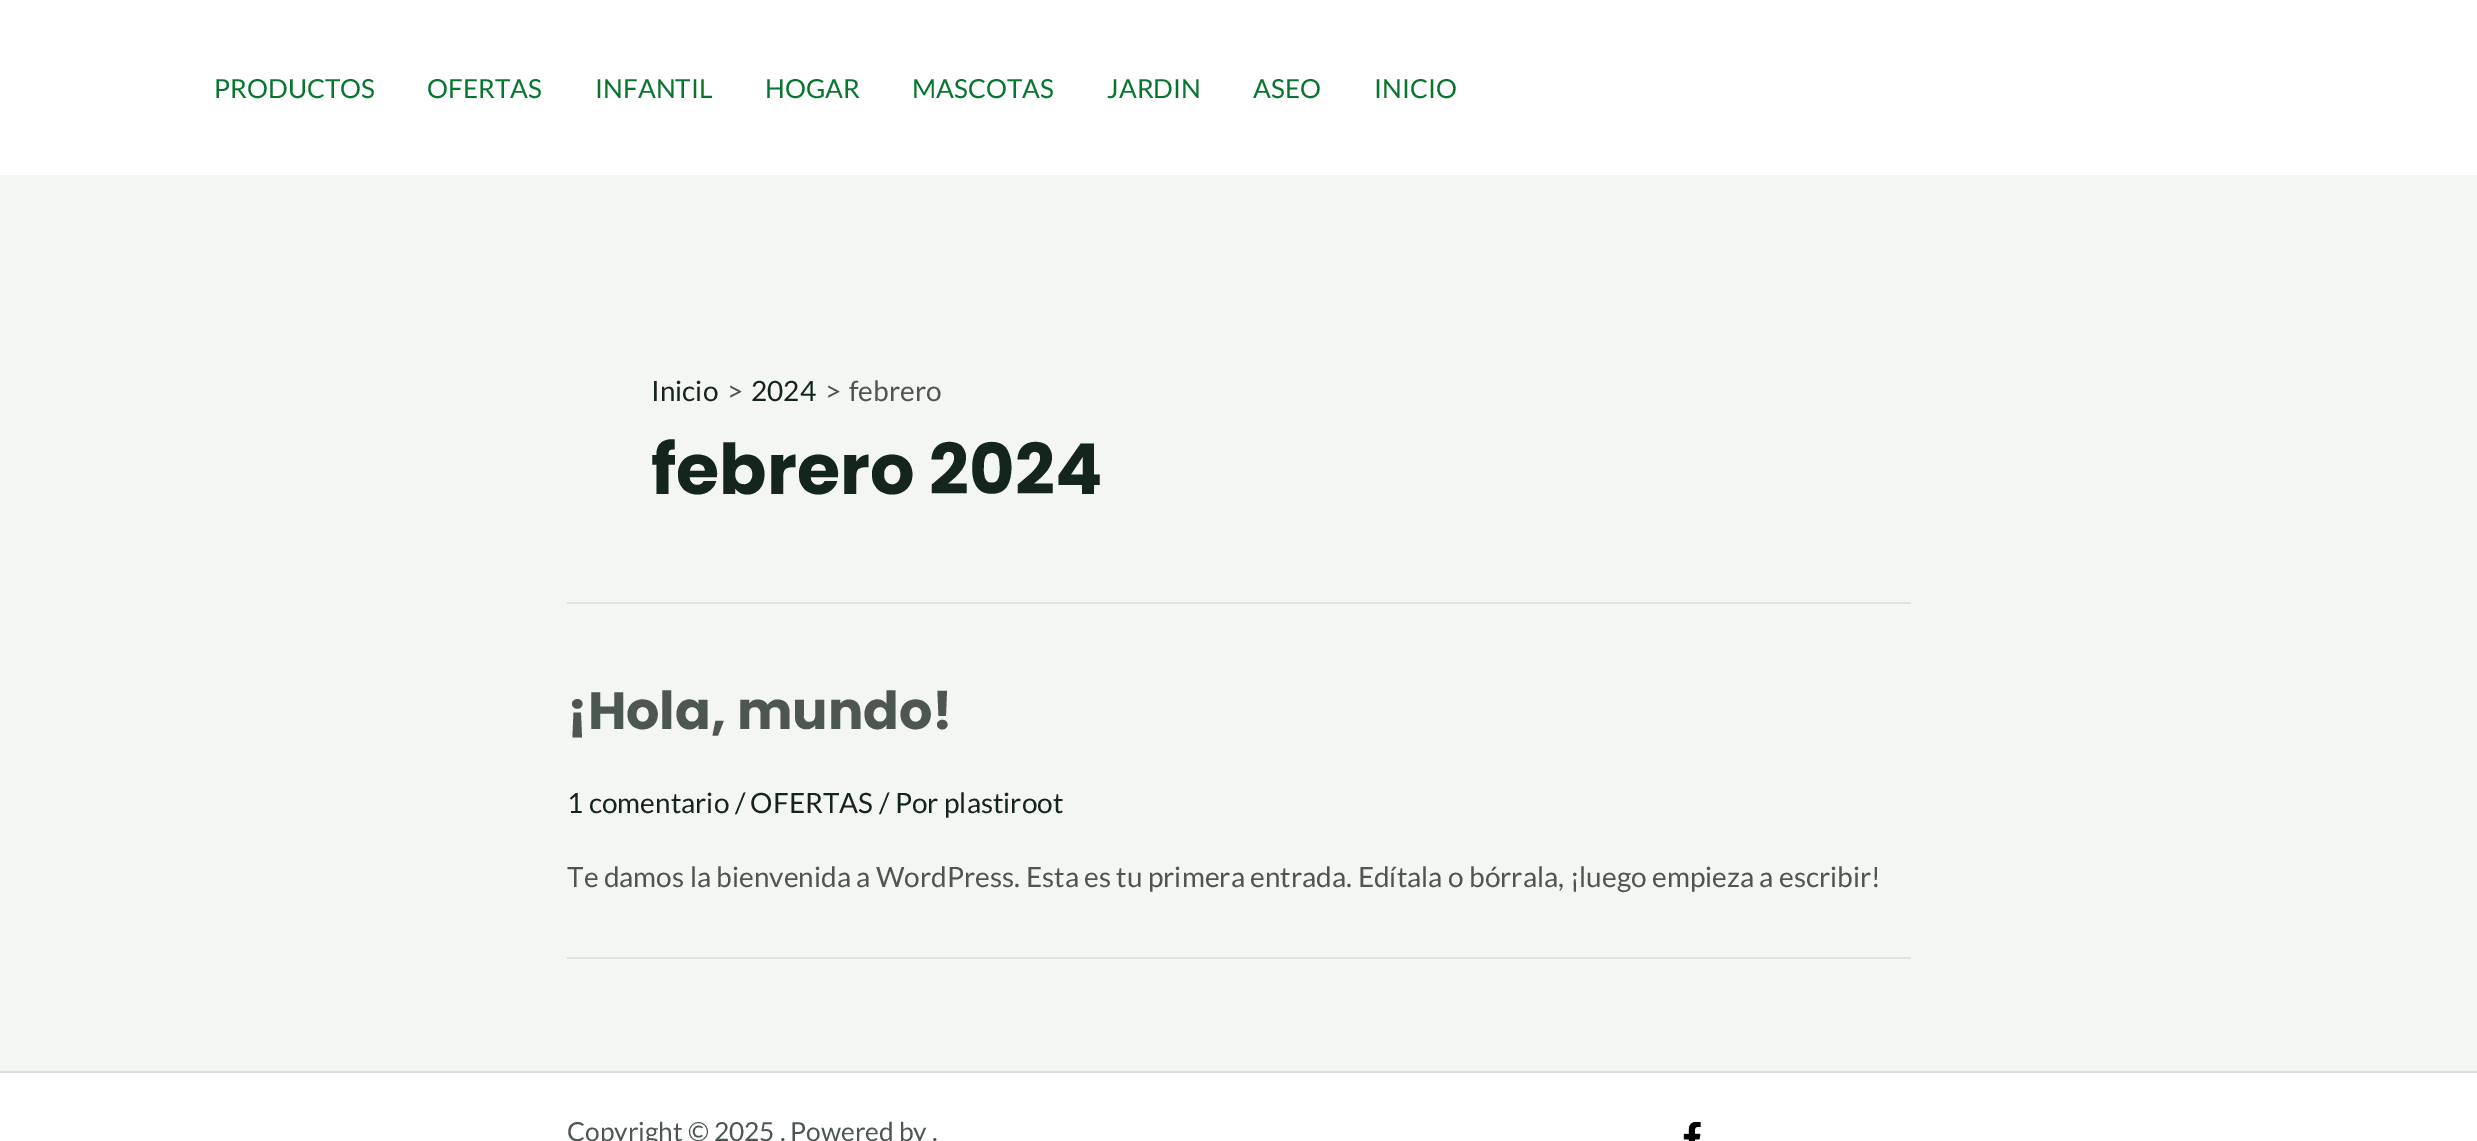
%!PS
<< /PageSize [2477 1141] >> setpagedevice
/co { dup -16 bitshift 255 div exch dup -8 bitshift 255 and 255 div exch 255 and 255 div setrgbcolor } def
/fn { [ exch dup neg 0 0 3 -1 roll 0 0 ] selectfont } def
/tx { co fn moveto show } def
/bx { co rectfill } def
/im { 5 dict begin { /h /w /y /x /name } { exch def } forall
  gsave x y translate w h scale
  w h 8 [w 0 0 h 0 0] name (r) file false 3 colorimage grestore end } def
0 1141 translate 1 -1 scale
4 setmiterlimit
0 0 2477 1141 16#F4F6F4 bx
0 0 2477 175 16#FFFFFF bx
567 602 1344 2 16#E2E2E2 bx
567 957 1344 2 16#E2E2E2 bx
0 1073 2477 68 16#FFFFFF bx
0 1071 2477 2 16#DDDDDD bx
(media/1.raw) 1683 1122 18 19 im
(PRODUCTOS) 214 98 /Lato-Regular 26.25 16#06752E tx
(OFERTAS) 427 98 /Lato-Regular 26.25 16#06752E tx
(INFANTIL) 595 98 /Lato-Regular 26.25 16#06752E tx
(HOGAR) 765 98 /Lato-Regular 26.25 16#06752E tx
(MASCOTAS) 912 98 /Lato-Regular 26.25 16#06752E tx
(JARDIN) 1107 98 /Lato-Regular 26.25 16#06752E tx
(ASEO) 1253 98 /Lato-Regular 26.25 16#06752E tx
(INICIO) 1374 98 /Lato-Regular 26.25 16#06752E tx
(Inicio) 651 401 /Lato-Regular 28 16#14261C tx
(>) 727 401 /Lato-Regular 28 16#4E5652 tx
(2024) 751 401 /Lato-Regular 28 16#14261C tx
(>) 825 401 /Lato-Regular 28 16#4E5652 tx
(febrero) 849 401 /Lato-Regular 28 16#4E5652 tx
(febrero 2024) 651 494 /Poppins-Bold 70 16#14261C tx
(¡Hola, mundo!) 567 729 /Poppins-Bold 52.5 16#4E5652 tx
(1 comentario / OFERTAS / Por plastiroot) 567 813 /Lato-Regular 28 16#14261C tx
(Te damos la bienvenida a WordPress. Esta es tu primera entrada. Edítala o bórrala, ¡luego empieza a escribir!) 567 887 /Lato-Regular 28 16#4E5652 tx
(Copyright © 2025 . Powered by .) 567 1141 /Lato-Regular 26.25 16#4E5652 tx
showpage
